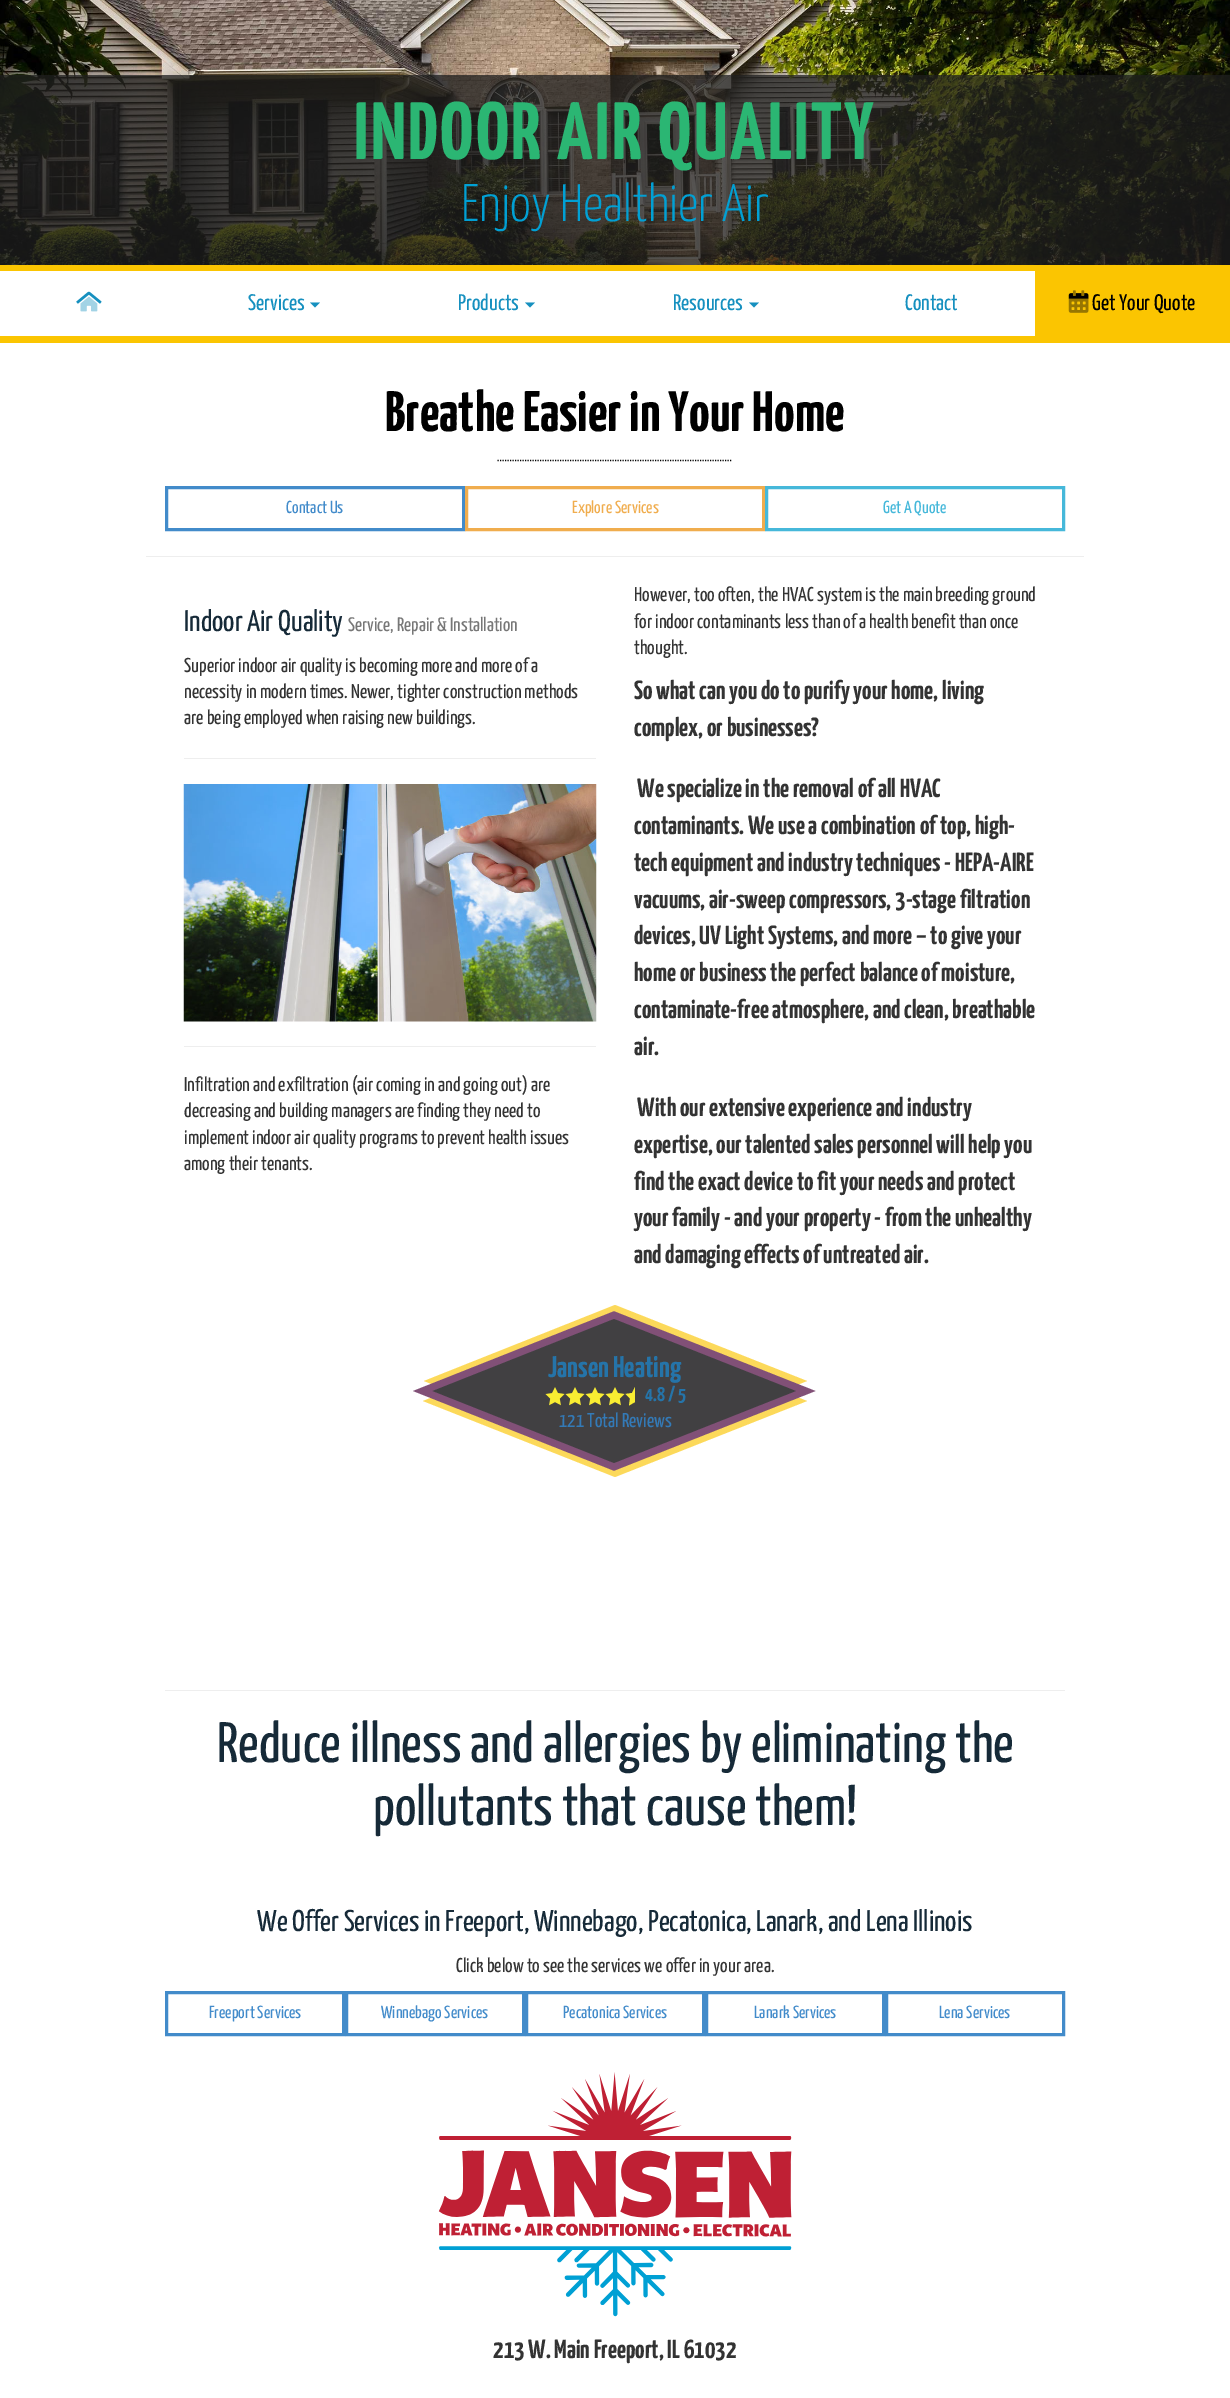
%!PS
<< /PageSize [1230 2398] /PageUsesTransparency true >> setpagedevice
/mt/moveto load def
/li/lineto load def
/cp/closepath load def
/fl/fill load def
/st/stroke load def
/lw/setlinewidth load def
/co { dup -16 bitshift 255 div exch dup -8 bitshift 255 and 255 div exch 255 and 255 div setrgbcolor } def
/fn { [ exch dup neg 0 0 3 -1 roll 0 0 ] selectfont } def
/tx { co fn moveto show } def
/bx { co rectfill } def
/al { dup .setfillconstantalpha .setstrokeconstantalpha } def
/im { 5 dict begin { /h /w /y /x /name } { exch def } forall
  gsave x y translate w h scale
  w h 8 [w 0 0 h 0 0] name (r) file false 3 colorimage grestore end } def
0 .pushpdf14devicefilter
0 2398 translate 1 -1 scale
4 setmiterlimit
0 0 1230 2398 16#FFFFFF bx
(media/1.raw) 0 0 1230 265 im
0.75 al
0 75 1230 190 16#1E1E1E bx
1 al
0 265 1230 6 16#FBC501 bx
0 336 1230 7 16#FBC501 bx
(media/2.raw) 76 291 26 13 im
(media/3.raw) 80 296 18 16 im
16#1690BF co
310 302.5 mt 320 302.5 li 315 307.5 li cp fl
525 302.5 mt 535 302.5 li 530 307.5 li cp fl
749 302.5 mt 759 302.5 li 754 307.5 li cp fl
1035 271 195 65 16#FBC501 bx
(media/5.raw) 1068 293 21 6 im
(media/4.raw) 1068 290 21 23 im
16#000000 co
1.2 lw
[1.25 1.25] 0 setdash
497.5 460.5 mt 732.5 460.5 li st
16#428BCA co
3 lw
[] 0 setdash
166.5 487.5 297 42 rectstroke
16#F0AD4E co
466.5 487.5 297 42 rectstroke
16#46B8DA co
766.5 487.5 297 42 rectstroke
146 556 938 1 16#EEEEEE bx
184 758 412 1 16#EEEEEE bx
(media/6.raw) 183 784 414 238 im
184 1046 412 1 16#EEEEEE bx
16#FCD95A co
615 1305 mt 424 1381 li 615 1457 li 807 1381 li cp fl
0.65 al
16#FBC501 co
615 1325 mt 423 1401 li 615 1477 li 807 1401 li cp fl
1 al
16#414042 co
614 1315 mt 423 1391 li 614 1467 li 806 1391 li cp fl
16#815077 co
6.9 lw
614 1315 mt 422.5 1391 li 614 1467 li 806 1391 li cp st
(media/7.raw) 545 1387 20 19 im
(media/7.raw) 565 1387 20 19 im
(media/7.raw) 585 1387 20 19 im
(media/7.raw) 605 1387 20 19 im
16#F9ED32 co
632 1393 mt 625.5 1394 li 630 1398.5 li 629 1405.5 li 635 1402 li 635 1387 li cp fl
165 1690 900 1 16#EEEEEE bx
16#428BCA co
3 lw
166.5 1992.5 177 42 rectstroke
346.5 1992.5 177 42 rectstroke
526.5 1992.5 177 42 rectstroke
706.5 1992.5 177 42 rectstroke
886.5 1992.5 177 42 rectstroke
(media/8.raw) 438 2072 354 245 im
/YanoneKaffeesatz-Bold 81.25 fn
16#2BB673 co
354 159 mt 2.5 0 (INDOOR AIR QUALITY) ashow
(Enjoy Healthier Air) 461 221 /YanoneKaffeesatz-Light 52.75 16#01A0D4 tx
(Services) 248 310 /YanoneKaffeesatz-Regular 22.5 16#1690BF tx
(Products) 458 310 /YanoneKaffeesatz-Regular 22.5 16#1690BF tx
(Resources) 673 310 /YanoneKaffeesatz-Regular 22.5 16#1690BF tx
(Contact) 905 310 /YanoneKaffeesatz-Regular 22.5 16#1690BF tx
(Get Your Quote) 1092 310 /YanoneKaffeesatz-Regular 22.5 16#000000 tx
(Breathe Easier in Your Home) 385 431 /YanoneKaffeesatz-Bold 57 16#000000 tx
(Contact Us) 286 513 /YanoneKaffeesatz-Regular 17.5 16#428BCA tx
(Explore Services) 572 513 /YanoneKaffeesatz-Regular 17.5 16#F0AD4E tx
(Get A Quote) 883 513 /YanoneKaffeesatz-Regular 17.5 16#46B8DA tx
(Indoor Air Quality) 184 631 /YanoneKaffeesatz-Regular 30 16#162A38 tx
(Service, Repair & Installation) 348 631 /YanoneKaffeesatz-Regular 19.5 16#777777 tx
(Superior indoor air quality is becoming more and more of a) 184 672 /YanoneKaffeesatz-Regular 20 16#333333 tx
(necessity in modern times. Newer, tighter construction methods) 184 698 /YanoneKaffeesatz-Regular 20 16#333333 tx
(are being employed when raising new buildings.) 184 724 /YanoneKaffeesatz-Regular 20 16#333333 tx
(Infiltration and exfiltration \(air coming in and going out\) are) 184 1091 /YanoneKaffeesatz-Regular 20 16#333333 tx
(decreasing and building managers are finding they need to) 184 1117 /YanoneKaffeesatz-Regular 20 16#333333 tx
(implement indoor air quality programs to prevent health issues) 184 1144 /YanoneKaffeesatz-Regular 20 16#333333 tx
(among their tenants.) 184 1170 /YanoneKaffeesatz-Regular 20 16#333333 tx
(However, too often, the HVAC system is the main breeding ground) 634 601 /YanoneKaffeesatz-Regular 20 16#333333 tx
(for indoor contaminants less than of a health benefit than once) 634 628 /YanoneKaffeesatz-Regular 20 16#333333 tx
(thought.) 634 654 /YanoneKaffeesatz-Regular 20 16#333333 tx
(So what can you do to purify your home, living) 634 699 /YanoneKaffeesatz-Bold 26.25 16#333333 tx
(complex, or businesses?) 634 736 /YanoneKaffeesatz-Bold 26.25 16#333333 tx
(We specialize in the removal of all HVAC) 637 797 /YanoneKaffeesatz-Bold 26.25 16#333333 tx
(contaminants. We use a combination of top, high-) 634 834 /YanoneKaffeesatz-Bold 26.25 16#333333 tx
(tech equipment and industry techniques - HEPA-AIRE) 634 871 /YanoneKaffeesatz-Bold 26.25 16#333333 tx
(vacuums, air-sweep compressors, 3-stage filtration) 634 908 /YanoneKaffeesatz-Bold 26.25 16#333333 tx
(devices, UV Light Systems, and more – to give your) 634 944 /YanoneKaffeesatz-Bold 26.25 16#333333 tx
(home or business the perfect balance of moisture,) 634 981 /YanoneKaffeesatz-Bold 26.25 16#333333 tx
(contaminate-free atmosphere, and clean, breathable) 634 1018 /YanoneKaffeesatz-Bold 26.25 16#333333 tx
(air.) 634 1055 /YanoneKaffeesatz-Bold 26.25 16#333333 tx
(With our extensive experience and industry) 637 1116 /YanoneKaffeesatz-Bold 26.25 16#333333 tx
(expertise, our talented sales personnel will help you) 634 1153 /YanoneKaffeesatz-Bold 26.25 16#333333 tx
(find the exact device to fit your needs and protect) 634 1190 /YanoneKaffeesatz-Bold 26.25 16#333333 tx
(your family - and your property - from the unhealthy) 634 1226 /YanoneKaffeesatz-Bold 26.25 16#333333 tx
(and damaging effects of untreated air.) 634 1263 /YanoneKaffeesatz-Bold 26.25 16#333333 tx
(Jansen Heating) 548 1377 /YanoneKaffeesatz-Bold 30 16#2574A9 tx
(4.8 / 5) 645 1401 /YanoneKaffeesatz-Bold 20 16#2574A9 tx
(121 Total Reviews) 559 1427 /YanoneKaffeesatz-Regular 20 16#337AB7 tx
(Reduce illness and allergies by eliminating the) 217 1762 /YanoneKaffeesatz-Regular 57 16#162A38 tx
(pollutants that cause them!) 373 1825 /YanoneKaffeesatz-Regular 57 16#162A38 tx
(We Offer Services in Freeport, Winnebago, Pecatonica, Lanark, and Lena Illinois) 257 1931 /YanoneKaffeesatz-Regular 30 16#162A38 tx
(Click below to see the services we offer in your area.) 456 1972 /YanoneKaffeesatz-Regular 20 16#333333 tx
(Freeport Services) 209 2018 /YanoneKaffeesatz-Regular 17.5 16#428BCA tx
(Winnebago Services) 381 2018 /YanoneKaffeesatz-Regular 17.5 16#428BCA tx
(Pecatonica Services) 563 2018 /YanoneKaffeesatz-Regular 17.5 16#428BCA tx
(Lanark Services) 754 2018 /YanoneKaffeesatz-Regular 17.5 16#428BCA tx
(Lena Services) 939 2018 /YanoneKaffeesatz-Regular 17.5 16#428BCA tx
(213 W. Main Freeport, IL 61032) 493 2358 /YanoneKaffeesatz-Bold 26.25 16#333333 tx
.poppdf14devicefilter showpage
